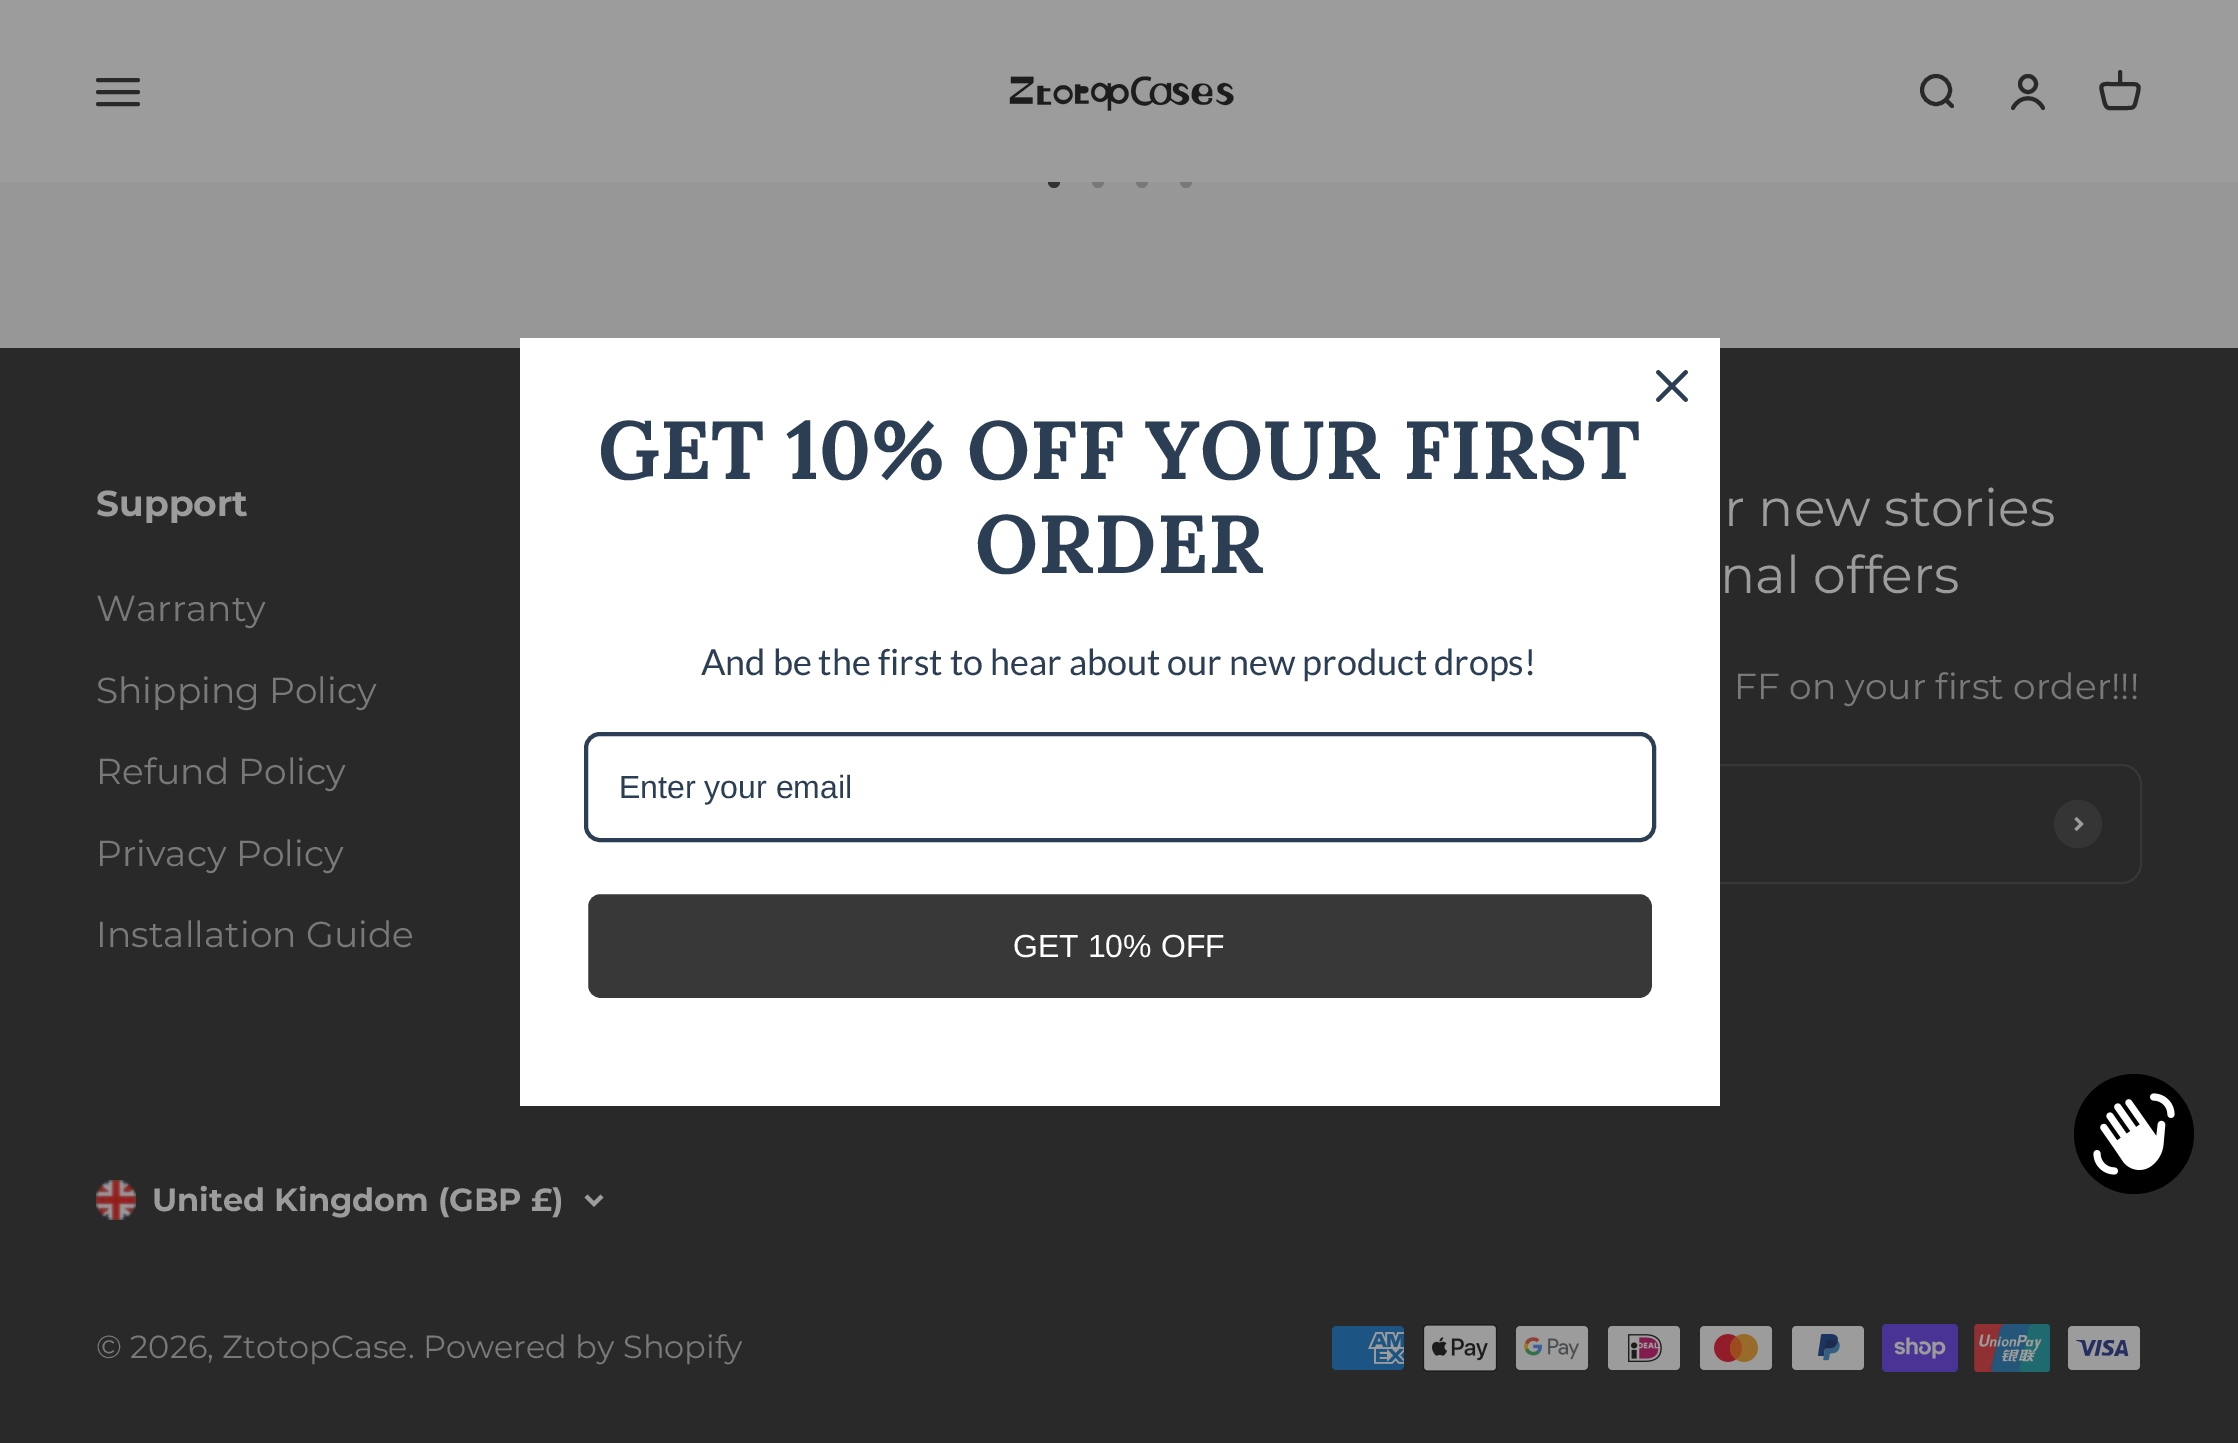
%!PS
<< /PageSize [2238 1443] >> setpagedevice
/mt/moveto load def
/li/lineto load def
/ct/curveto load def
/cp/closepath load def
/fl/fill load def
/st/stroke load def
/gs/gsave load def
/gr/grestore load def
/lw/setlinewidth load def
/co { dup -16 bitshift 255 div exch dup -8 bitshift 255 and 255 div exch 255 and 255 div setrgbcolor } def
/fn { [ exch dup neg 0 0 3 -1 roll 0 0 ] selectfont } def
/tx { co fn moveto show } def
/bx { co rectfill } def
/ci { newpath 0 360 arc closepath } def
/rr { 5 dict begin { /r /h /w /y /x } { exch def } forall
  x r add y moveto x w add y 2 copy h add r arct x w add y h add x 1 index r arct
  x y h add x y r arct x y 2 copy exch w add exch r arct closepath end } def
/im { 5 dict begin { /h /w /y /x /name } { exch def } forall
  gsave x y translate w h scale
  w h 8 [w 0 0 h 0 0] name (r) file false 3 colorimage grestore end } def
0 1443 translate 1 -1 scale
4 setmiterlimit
0 0 2238 1443 16#979797 bx
16#323232 co
1054 182 6 ci fl
16#797979 co
1098 182 6 ci fl
1142 182 6 ci fl
1186 182 6 ci fl
0 0 2238 182 16#9C9C9C bx
16#292929 co
4 lw
1 setlinecap
98 80 mt 138 80 li 98 92 mt 138 92 li 98 104 mt 138 104 li st
(media/1.raw) 1009 76 225 35 im
0 setlinecap
1936 90 14 ci st
1 setlinecap
1 setlinejoin
1946 100 mt 1952 106 li st
0 setlinecap
0 setlinejoin
2028 84 8 ci st
1 setlinecap
2013 108 mt 2019.5 95 2036.5 95 2043 108 ct st
1 setlinejoin
2120 84 mt 2110 84 li 2108 84 2104.5 83.5 2102.5 85 ct 2100.5 86.5 2101.5 89.5 2102 91.5 ct 2104.5 102.5 li 2105.5 105 2106 108 2109.5 108 ct 2127 108 li 2133 108 2134 108 2135.5 102.5 ct 2137.5 94.5 li 2139 87.5 2140.5 84 2132.5 84 ct cp 2120 84 mt 2120 72 li st
0 348 2238 1095 16#292929 bx
16#373737 co
2 lw
0 setlinecap
0 setlinejoin
1461 765 680 118 19 rr st
520 338 1200 768 16#FFFFFF bx
(media/2.raw) 1656 370 32 32 im
16#2C3E54 co
4 lw
586 734 1068 106 14 rr st
16#383838 co
586 892 1068 108 14 rr gs fl gr
16#FFFFFF co
st
16#353535 co
2078 824 24 ci fl
16#9C9C9C co
3 lw
2075.5 830 mt 2081.5 824 li 2075.5 818 li st
(media/3.raw) 96 1180 40 40 im
4 lw
586 1196 mt 594 1204 li 602 1196 li st
(media/4.raw) 1332 1326 72 44 im
(media/5.raw) 1422 1324 76 48 im
(media/6.raw) 1516 1326 72 44 im
(media/7.raw) 1608 1326 72 44 im
(media/8.raw) 1700 1326 72 44 im
(media/9.raw) 1792 1326 72 44 im
(media/10.raw) 1882 1324 76 48 im
(media/11.raw) 1974 1324 76 48 im
(media/12.raw) 2068 1326 72 44 im
16#000000 co
2134 1134 60 ci fl
(media/13.raw) 2093 1093 82 82 im
(GET 10% OFF YOUR FIRST) 598 479 /Lora-Bold 82 16#2C3E54 tx
(ORDER) 975 573 /Lora-Bold 82 16#2C3E54 tx
(And be the first to hear about our new product drops!) 701 675 /Lato-Regular 36 16#2C3E54 tx
(Enter your email) 619 798 /LiberationSans-Regular 32 16#2C3E54 tx
(GET 10% OFF) 1013 957 /LiberationSans-Regular 32 16#FFFFFF tx
(Support) 96 516 /Montserrat-Bold 36 16#9C9C9C tx
(Warranty) 96 621 /Montserrat-Regular 36 16#797979 tx
(Shipping Policy) 96 703 /Montserrat-Regular 36 16#797979 tx
(Refund Policy) 96 784 /Montserrat-Regular 36 16#797979 tx
(Privacy Policy) 96 866 /Montserrat-Regular 36 16#797979 tx
(Installation Guide) 96 947 /Montserrat-Regular 36 16#797979 tx
(r new stories) 1724 526 /Montserrat-Regular 52 16#9C9C9C tx
(nal offers) 1720 593 /Montserrat-Regular 52 16#9C9C9C tx
(FF on your first order!!!) 1734 699 /Montserrat-Regular 36 16#797979 tx
(United Kingdom \(GBP £\)) 152 1211 /Montserrat-Bold 32 16#9C9C9C tx
(© 2026, ZtotopCase. Powered by Shopify) 96 1358 /Montserrat-Regular 32 16#797979 tx
showpage
